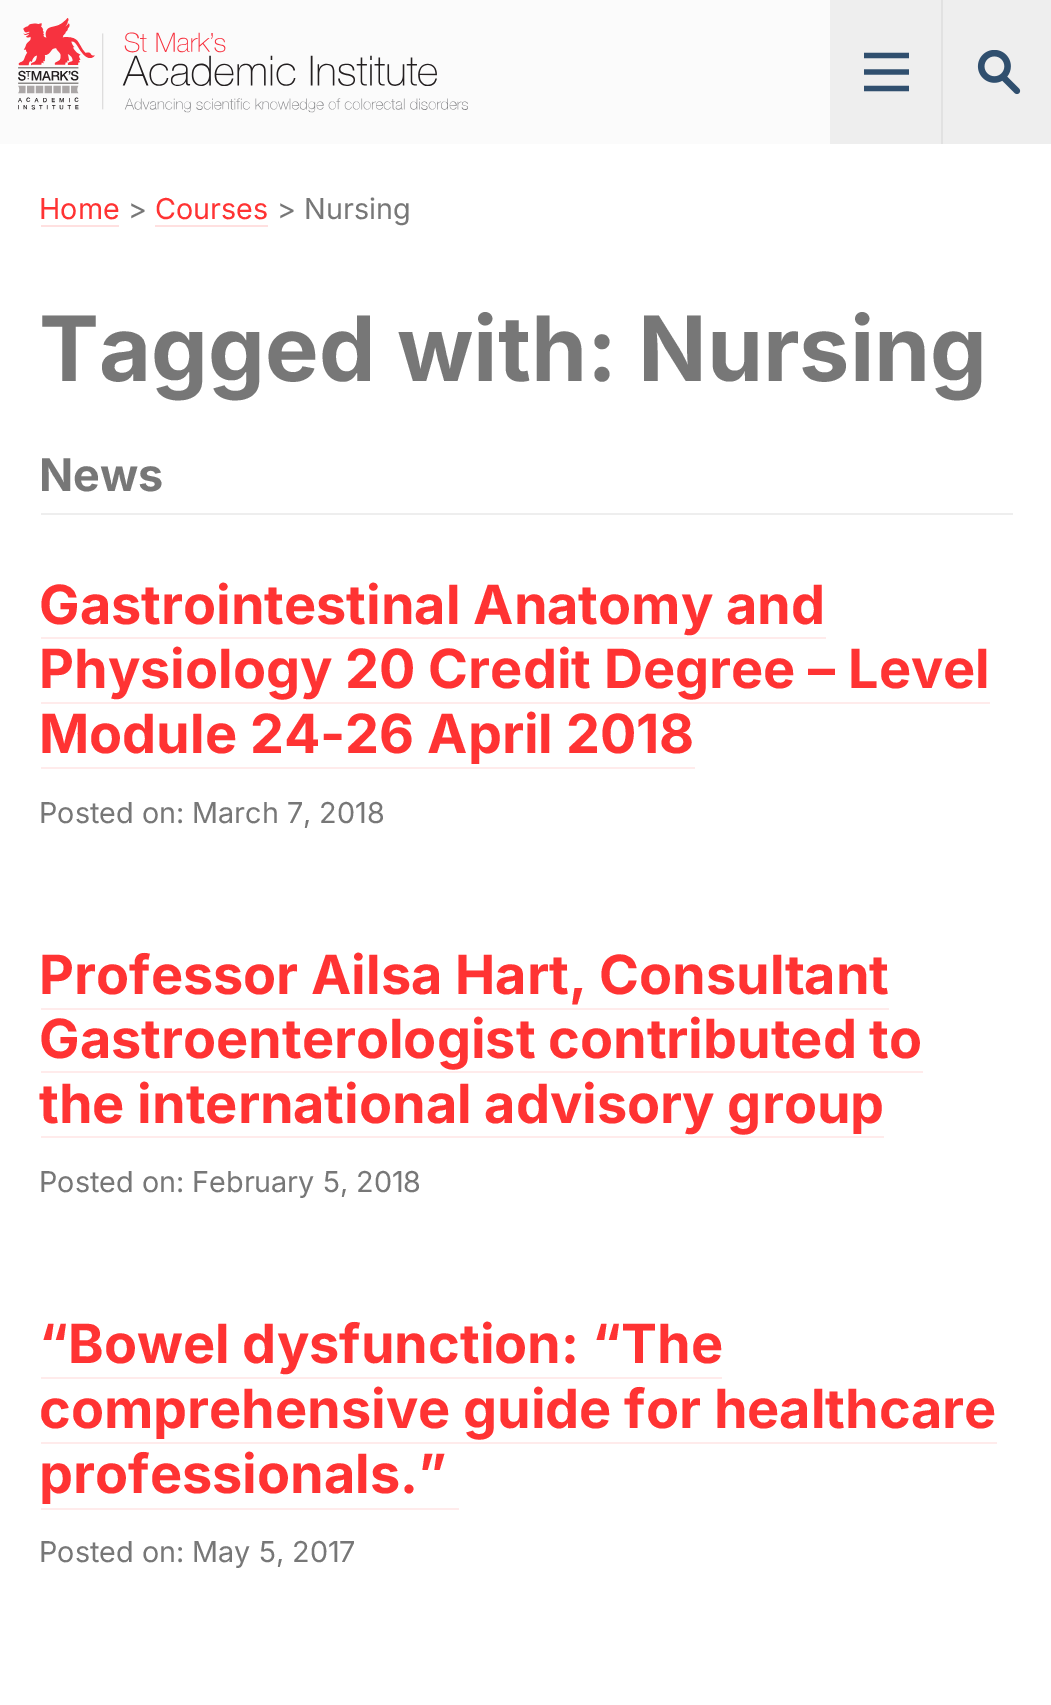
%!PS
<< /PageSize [1051 1705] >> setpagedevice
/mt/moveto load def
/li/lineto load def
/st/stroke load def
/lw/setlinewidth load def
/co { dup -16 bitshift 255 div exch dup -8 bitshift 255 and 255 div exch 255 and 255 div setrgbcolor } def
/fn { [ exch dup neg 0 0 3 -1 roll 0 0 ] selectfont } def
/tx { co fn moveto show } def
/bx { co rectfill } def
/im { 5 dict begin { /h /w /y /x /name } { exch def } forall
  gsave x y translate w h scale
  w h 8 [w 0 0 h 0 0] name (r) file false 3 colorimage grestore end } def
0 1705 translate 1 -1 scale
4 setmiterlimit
0 0 1051 1705 16#FFFFFF bx
0 0 830 144 16#FBFBFB bx
(media/1.raw) 18 18 450 95 im
830 0 111 144 16#EEEEEE bx
941 0 2 144 16#E1E1E1 bx
16#304F6E co
5.2 lw
864 55.5 mt 909 55.5 li 864 88.5 mt 909 88.5 li 864 72 mt 909 72 li st
943 0 108 144 16#EEEEEE bx
(media/2.raw) 977 50 44 45 im
41 225 78 2 16#FFE0E0 bx
155 225 113 2 16#FFE0E0 bx
41 513 972 2 16#EEEEEE bx
41 637 785 2 16#FFEBEB bx
41 702 949 2 16#FFEBEB bx
41 767 654 2 16#FFEBEB bx
41 1008 848 2 16#FFEBEB bx
41 1071 882 2 16#FFEBEB bx
41 1136 843 2 16#FFEBEB bx
41 1377 681 2 16#FFEBEB bx
41 1442 956 2 16#FFEBEB bx
41 1508 418 2 16#FFEBEB bx
(Home) 39 219 /Inter-Regular 28.75 16#FF3333 tx
(>) 128 219 /Inter-Regular 28.75 16#777777 tx
(Courses) 155 219 /Inter-Regular 28.75 16#FF3333 tx
(> Nursing) 277 219 /Inter-Regular 28.75 16#777777 tx
(Tagged with: Nursing) 39 381 /Inter-Bold 90 16#777777 tx
(News) 39 491 /Inter-Bold 45 16#777777 tx
(Gastrointestinal Anatomy and) 39 624 /Inter-Bold 54 16#FF3333 tx
(Physiology 20 Credit Degree – Level) 39 688 /Inter-Bold 54 16#FF3333 tx
(Module 24-26 April 2018) 39 753 /Inter-Bold 54 16#FF3333 tx
(Posted on: March 7, 2018) 39 823 /Inter-Regular 28.75 16#777777 tx
(Professor Ailsa Hart, Consultant) 39 994 /Inter-Bold 54 16#FF3333 tx
(Gastroenterologist contributed to) 39 1058 /Inter-Bold 54 16#FF3333 tx
(the international advisory group) 39 1123 /Inter-Bold 54 16#FF3333 tx
(Posted on: February 5, 2018) 39 1192 /Inter-Regular 28.75 16#777777 tx
(“Bowel dysfunction: “The) 39 1363 /Inter-Bold 54 16#FF3333 tx
(comprehensive guide for healthcare) 39 1428 /Inter-Bold 54 16#FF3333 tx
(professionals.”) 39 1493 /Inter-Bold 54 16#FF3333 tx
(Posted on: May 5, 2017) 39 1562 /Inter-Regular 28.75 16#777777 tx
showpage
